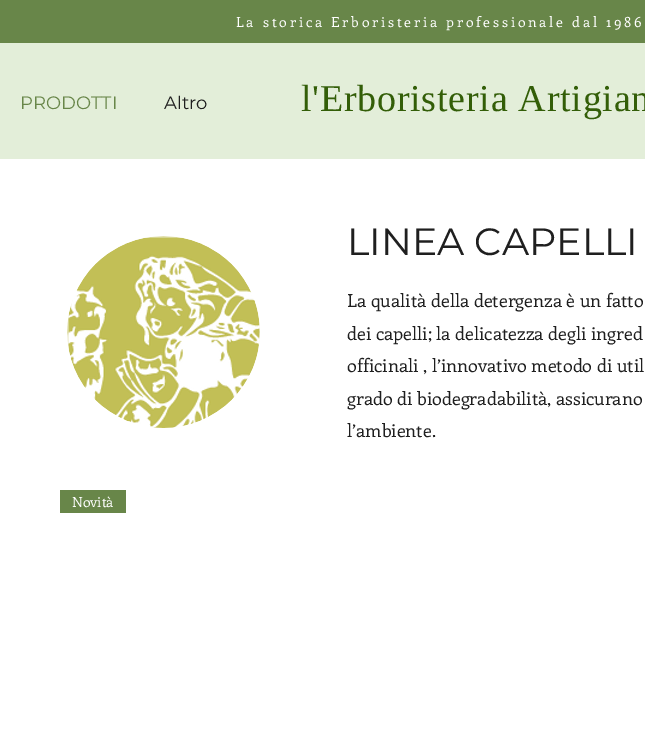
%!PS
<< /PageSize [645 748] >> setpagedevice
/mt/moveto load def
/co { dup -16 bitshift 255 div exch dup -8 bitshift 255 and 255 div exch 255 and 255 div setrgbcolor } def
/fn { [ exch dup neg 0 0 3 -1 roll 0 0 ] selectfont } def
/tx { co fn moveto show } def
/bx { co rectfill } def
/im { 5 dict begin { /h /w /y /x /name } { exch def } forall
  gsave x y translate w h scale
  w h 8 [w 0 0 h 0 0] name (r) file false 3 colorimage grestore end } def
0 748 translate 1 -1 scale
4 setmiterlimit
0 0 645 748 16#FFFFFF bx
0 0 645 43 16#688649 bx
0 43 645 116 16#E3EED9 bx
(media/1.raw) 67 236 193 192 im
60 490 66 23 16#688649 bx
/Enriqueta-Regular 14 fn
16#FFFFFF co
236 27 mt 2.8 0 (La storica Erboristeria professionale dal 1986) ashow
(PRODOTTI) 20 109 /Montserrat-Regular 18 16#688649 tx
(Altro) 164 109 /Montserrat-Regular 18 16#1F1F1F tx
/LiberationSerif-Regular 38 fn
16#335E08 co
301 111 mt .75 0 (l'Erboristeria Artigian) ashow
(LINEA CAPELLI) 347 255 /Montserrat-Regular 38 16#1F1F1F tx
(La qualità della detergenza è un fatto) 347 307 /Enriqueta-Regular 18 16#1F1F1F tx
(dei capelli; la delicatezza degli ingred) 347 340 /Enriqueta-Regular 18 16#1F1F1F tx
(officinali , l’innovativo metodo di util) 347 372 /Enriqueta-Regular 18 16#1F1F1F tx
(grado di biodegradabilità, assicurano) 347 405 /Enriqueta-Regular 18 16#1F1F1F tx
(l’ambiente.) 347 437 /Enriqueta-Regular 18 16#1F1F1F tx
(Novità) 72 507 /Enriqueta-Regular 14 16#FFFFFF tx
showpage
